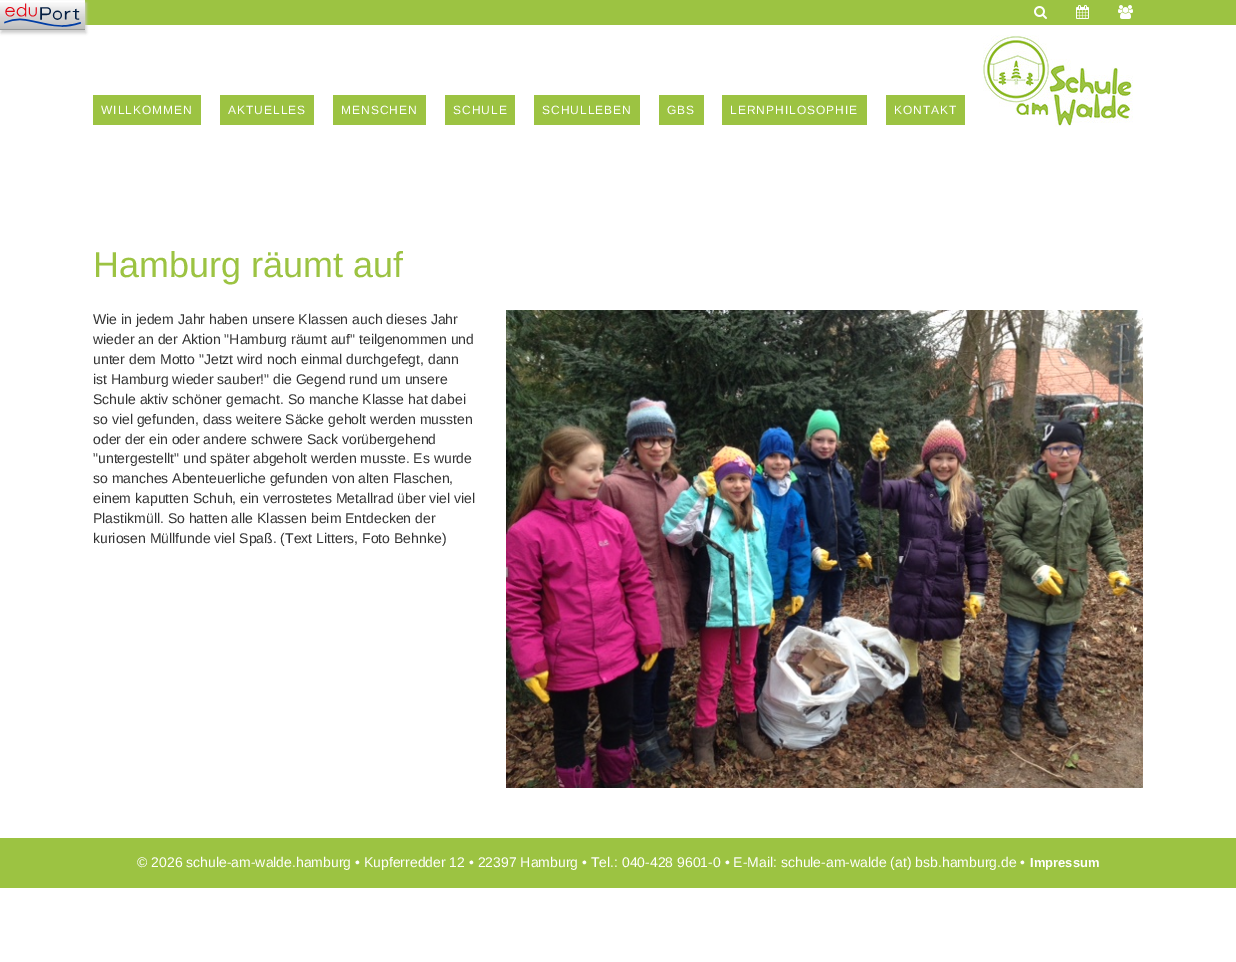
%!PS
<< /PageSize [1236 962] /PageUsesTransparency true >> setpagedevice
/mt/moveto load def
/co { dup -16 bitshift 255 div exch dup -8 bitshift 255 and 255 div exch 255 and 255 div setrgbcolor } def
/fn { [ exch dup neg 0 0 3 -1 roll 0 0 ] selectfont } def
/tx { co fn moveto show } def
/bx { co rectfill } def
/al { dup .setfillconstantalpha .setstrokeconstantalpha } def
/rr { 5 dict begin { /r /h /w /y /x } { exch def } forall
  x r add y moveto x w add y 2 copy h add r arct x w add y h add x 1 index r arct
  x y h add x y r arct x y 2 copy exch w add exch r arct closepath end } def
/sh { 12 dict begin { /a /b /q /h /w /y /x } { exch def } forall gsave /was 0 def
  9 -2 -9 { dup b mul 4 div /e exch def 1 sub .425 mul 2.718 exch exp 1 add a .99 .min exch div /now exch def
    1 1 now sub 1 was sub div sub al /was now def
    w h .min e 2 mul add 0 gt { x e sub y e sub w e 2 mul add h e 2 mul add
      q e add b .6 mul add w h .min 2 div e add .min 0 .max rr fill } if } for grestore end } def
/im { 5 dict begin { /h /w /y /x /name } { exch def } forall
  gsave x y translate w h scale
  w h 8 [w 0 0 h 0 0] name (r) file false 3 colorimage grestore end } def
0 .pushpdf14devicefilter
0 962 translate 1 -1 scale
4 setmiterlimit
0 0 1236 962 16#FFFFFF bx
85 0 1151 25 16#9CC342 bx
16#CCCCCC co
1 3 85 30 0 1.5 1 sh
0 1 85 29 16#FFFFFF bx
(media/1.raw) 0 2 85 28 im
(media/2.raw) 1034 6 13 13 im
(media/3.raw) 1076 5 13 14 im
(media/4.raw) 1118 5 15 14 im
93 95 108 30 16#9CC342 bx
220 95 94 30 16#9CC342 bx
333 95 93 30 16#9CC342 bx
445 95 70 30 16#9CC342 bx
534 95 106 30 16#9CC342 bx
659 95 45 30 16#9CC342 bx
722 95 145 30 16#9CC342 bx
886 95 79 30 16#9CC342 bx
(media/5.raw) 983 35 150 92 im
(media/6.raw) 506 310 637 478 im
0 838 1236 50 16#9CC342 bx
/LiberationSans-Regular 12 fn
16#FFFFFF co
101 114 mt 1 0 (WILLKOMMEN) ashow
228 114 mt 1 0 (AKTUELLES) ashow
341 114 mt 1 0 (MENSCHEN) ashow
453 114 mt 1 0 (SCHULE) ashow
542 114 mt 1 0 (SCHULLEBEN) ashow
667 114 mt 1 0 (GBS) ashow
730 114 mt 1 0 (LERNPHILOSOPHIE) ashow
894 114 mt 1 0 (KONTAKT) ashow
(Hamburg räumt auf) 93 277 /LiberationSans-Regular 36 16#9CC342 tx
(Wie in jedem Jahr haben unsere Klassen auch dieses Jahr) 93 324 /LiberationSans-Regular 14 16#333333 tx
(wieder an der Aktion "Hamburg räumt auf" teilgenommen und) 93 344 /LiberationSans-Regular 14 16#333333 tx
(unter dem Motto "Jetzt wird noch einmal durchgefegt, dann) 93 364 /LiberationSans-Regular 14 16#333333 tx
(ist Hamburg wieder sauber!" die Gegend rund um unsere) 93 384 /LiberationSans-Regular 14 16#333333 tx
(Schule aktiv schöner gemacht. So manche Klasse hat dabei) 93 404 /LiberationSans-Regular 14 16#333333 tx
(so viel gefunden, dass weitere Säcke geholt werden mussten) 93 424 /LiberationSans-Regular 14 16#333333 tx
(oder der ein oder andere schwere Sack vorübergehend) 93 444 /LiberationSans-Regular 14 16#333333 tx
("untergestellt" und später abgeholt werden musste. Es wurde) 93 463 /LiberationSans-Regular 14 16#333333 tx
(so manches Abenteuerliche gefunden von alten Flaschen,) 93 483 /LiberationSans-Regular 14 16#333333 tx
(einem kaputten Schuh, ein verrostetes Metallrad über viel viel) 93 503 /LiberationSans-Regular 14 16#333333 tx
(Plastikmüll. So hatten alle Klassen beim Entdecken der) 93 523 /LiberationSans-Regular 14 16#333333 tx
(kuriosen Müllfunde viel Spaß. \(Text Litters, Foto Behnke\)) 93 543 /LiberationSans-Regular 14 16#333333 tx
(© 2026 schule-am-walde.hamburg • Kupferredder 12 • 22397 Hamburg • Tel.: 040-428 9601-0 • E-Mail: schule-am-walde \(at\) bsb.hamburg.de •) 137 867 /LiberationSans-Regular 14 16#FFFFFF tx
(Impressum) 1030 867 /LiberationSans-Bold 13 16#FFFFFF tx
.poppdf14devicefilter showpage
